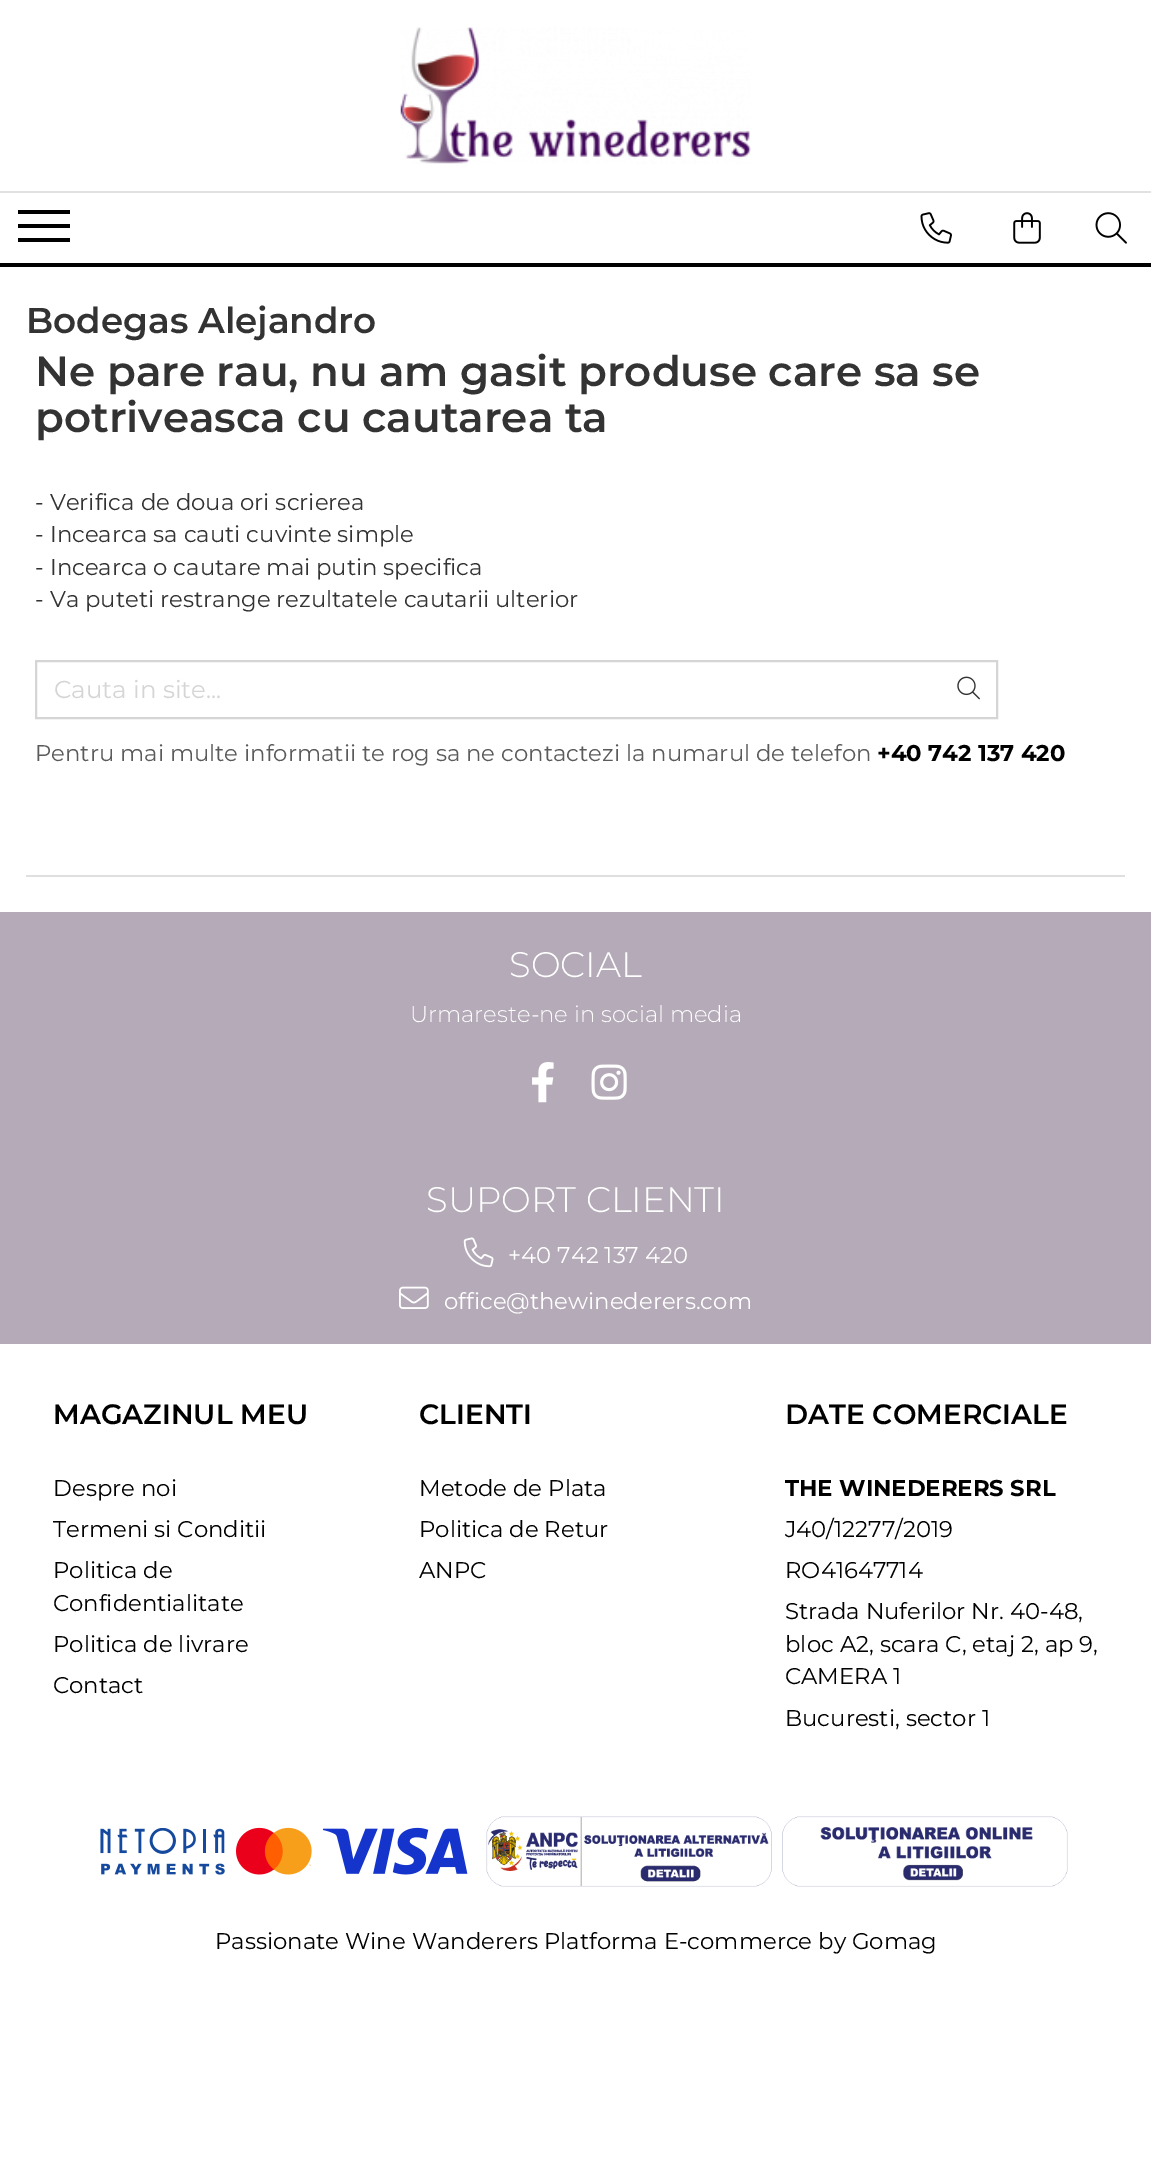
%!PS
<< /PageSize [1151 2177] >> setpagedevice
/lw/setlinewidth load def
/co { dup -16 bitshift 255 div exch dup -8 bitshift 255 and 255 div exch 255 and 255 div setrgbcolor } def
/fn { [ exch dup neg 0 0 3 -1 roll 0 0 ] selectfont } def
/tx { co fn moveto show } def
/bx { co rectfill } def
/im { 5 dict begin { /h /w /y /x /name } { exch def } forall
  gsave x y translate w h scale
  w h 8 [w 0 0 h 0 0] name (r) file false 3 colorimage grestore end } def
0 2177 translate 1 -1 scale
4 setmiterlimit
0 0 1151 2177 16#FFFFFF bx
(media/1.raw) 400 27 351 137 im
0 191 1151 2 16#E1E1E1 bx
0 263 1151 4 16#000000 bx
18 224 52 4 16#000000 bx
18 210 52 4 16#000000 bx
18 238 52 4 16#000000 bx
(media/2.raw) 920 212 32 32 im
(media/3.raw) 1013 212 28 32 im
(media/4.raw) 1095 212 32 32 im
26 875 1099 2 16#DFDFDF bx
16#D5D5D5 co
2 lw
36 661 961 57 rectstroke
(media/5.raw) 957 676 23 24 im
0 912 1151 432 16#B4AAB8 bx
(media/6.raw) 532 1062 22 41 im
(media/7.raw) 591 1064 36 36 im
(media/8.raw) 463 1237 31 31 im
(media/9.raw) 399 1286 30 23 im
(media/10.raw) 100 1827 368 48 im
(media/11.raw) 486 1816 286 71 im
(media/12.raw) 782 1816 286 71 im
(Bodegas Alejandro) 26 333 /Montserrat-SemiBold 35.75 16#333333 tx
(Ne pare rau, nu am gasit produse care sa se) 35 386 /Montserrat-SemiBold 42 16#333333 tx
(potriveasca cu cautarea ta) 35 432 /Montserrat-SemiBold 42 16#333333 tx
(- Verifica de doua ori scrierea) 35 510 /Montserrat-Regular 22.75 16#333333 tx
(- Incearca sa cauti cuvinte simple) 35 542 /Montserrat-Regular 22.75 16#333333 tx
(- Incearca o cautare mai putin specifica) 35 575 /Montserrat-Regular 22.75 16#333333 tx
(- Va puteti restrange rezultatele cautarii ulterior) 35 607 /Montserrat-Regular 22.75 16#333333 tx
(Cauta in site...) 54 698 /Montserrat-Regular 24.5 16#D5D5D5 tx
(Pentru mai multe informatii te rog sa ne contactezi la numarul de telefon) 35 761 /Montserrat-Regular 22.75 16#5B5B5B tx
(+40 742 137 420) 877 761 /Montserrat-Bold 22.75 16#000000 tx
(SOCIAL) 509 977 /Montserrat-Light 35.5 16#FFFFFF tx
(Urmareste-ne in social media) 410 1022 /Montserrat-Light 22.75 16#FFFFFF tx
(SUPORT CLIENTI) 426 1212 /Montserrat-Light 35.5 16#FFFFFF tx
(+40 742 137 420) 508 1263 /Montserrat-Regular 22.75 16#FFFFFF tx
(office@thewinederers.com) 444 1309 /Montserrat-Regular 22.75 16#FFFFFF tx
(MAGAZINUL MEU) 53 1424 /Montserrat-SemiBold 28 16#000000 tx
(Despre noi) 53 1496 /Montserrat-Regular 22.75 16#000000 tx
(Termeni si Conditii) 53 1537 /Montserrat-Regular 22.75 16#000000 tx
(Politica de) 53 1578 /Montserrat-Regular 22.75 16#000000 tx
(Confidentialitate) 53 1611 /Montserrat-Regular 22.75 16#000000 tx
(Politica de livrare) 53 1652 /Montserrat-Regular 22.75 16#000000 tx
(Contact) 53 1693 /Montserrat-Regular 22.75 16#000000 tx
(CLIENTI) 419 1424 /Montserrat-SemiBold 28 16#000000 tx
(Metode de Plata) 419 1496 /Montserrat-Regular 22.75 16#000000 tx
(Politica de Retur) 419 1537 /Montserrat-Regular 22.75 16#000000 tx
(ANPC) 419 1578 /Montserrat-Regular 22.75 16#000000 tx
(DATE COMERCIALE) 785 1424 /Montserrat-SemiBold 28 16#000000 tx
(THE WINEDERERS SRL) 785 1496 /Montserrat-Bold 22.75 16#000000 tx
(J40/12277/2019) 785 1537 /Montserrat-Regular 22.75 16#000000 tx
(RO41647714) 785 1578 /Montserrat-Regular 22.75 16#000000 tx
(Strada Nuferilor Nr. 40-48,) 785 1619 /Montserrat-Regular 22.75 16#000000 tx
(bloc A2, scara C, etaj 2, ap 9,) 785 1652 /Montserrat-Regular 22.75 16#000000 tx
(CAMERA 1) 785 1684 /Montserrat-Regular 22.75 16#000000 tx
(Bucuresti, sector 1) 785 1726 /Montserrat-Regular 22.75 16#000000 tx
(Passionate Wine Wanderers Platforma E-commerce by Gomag) 215 1949 /Montserrat-Regular 22.75 16#000000 tx
showpage
